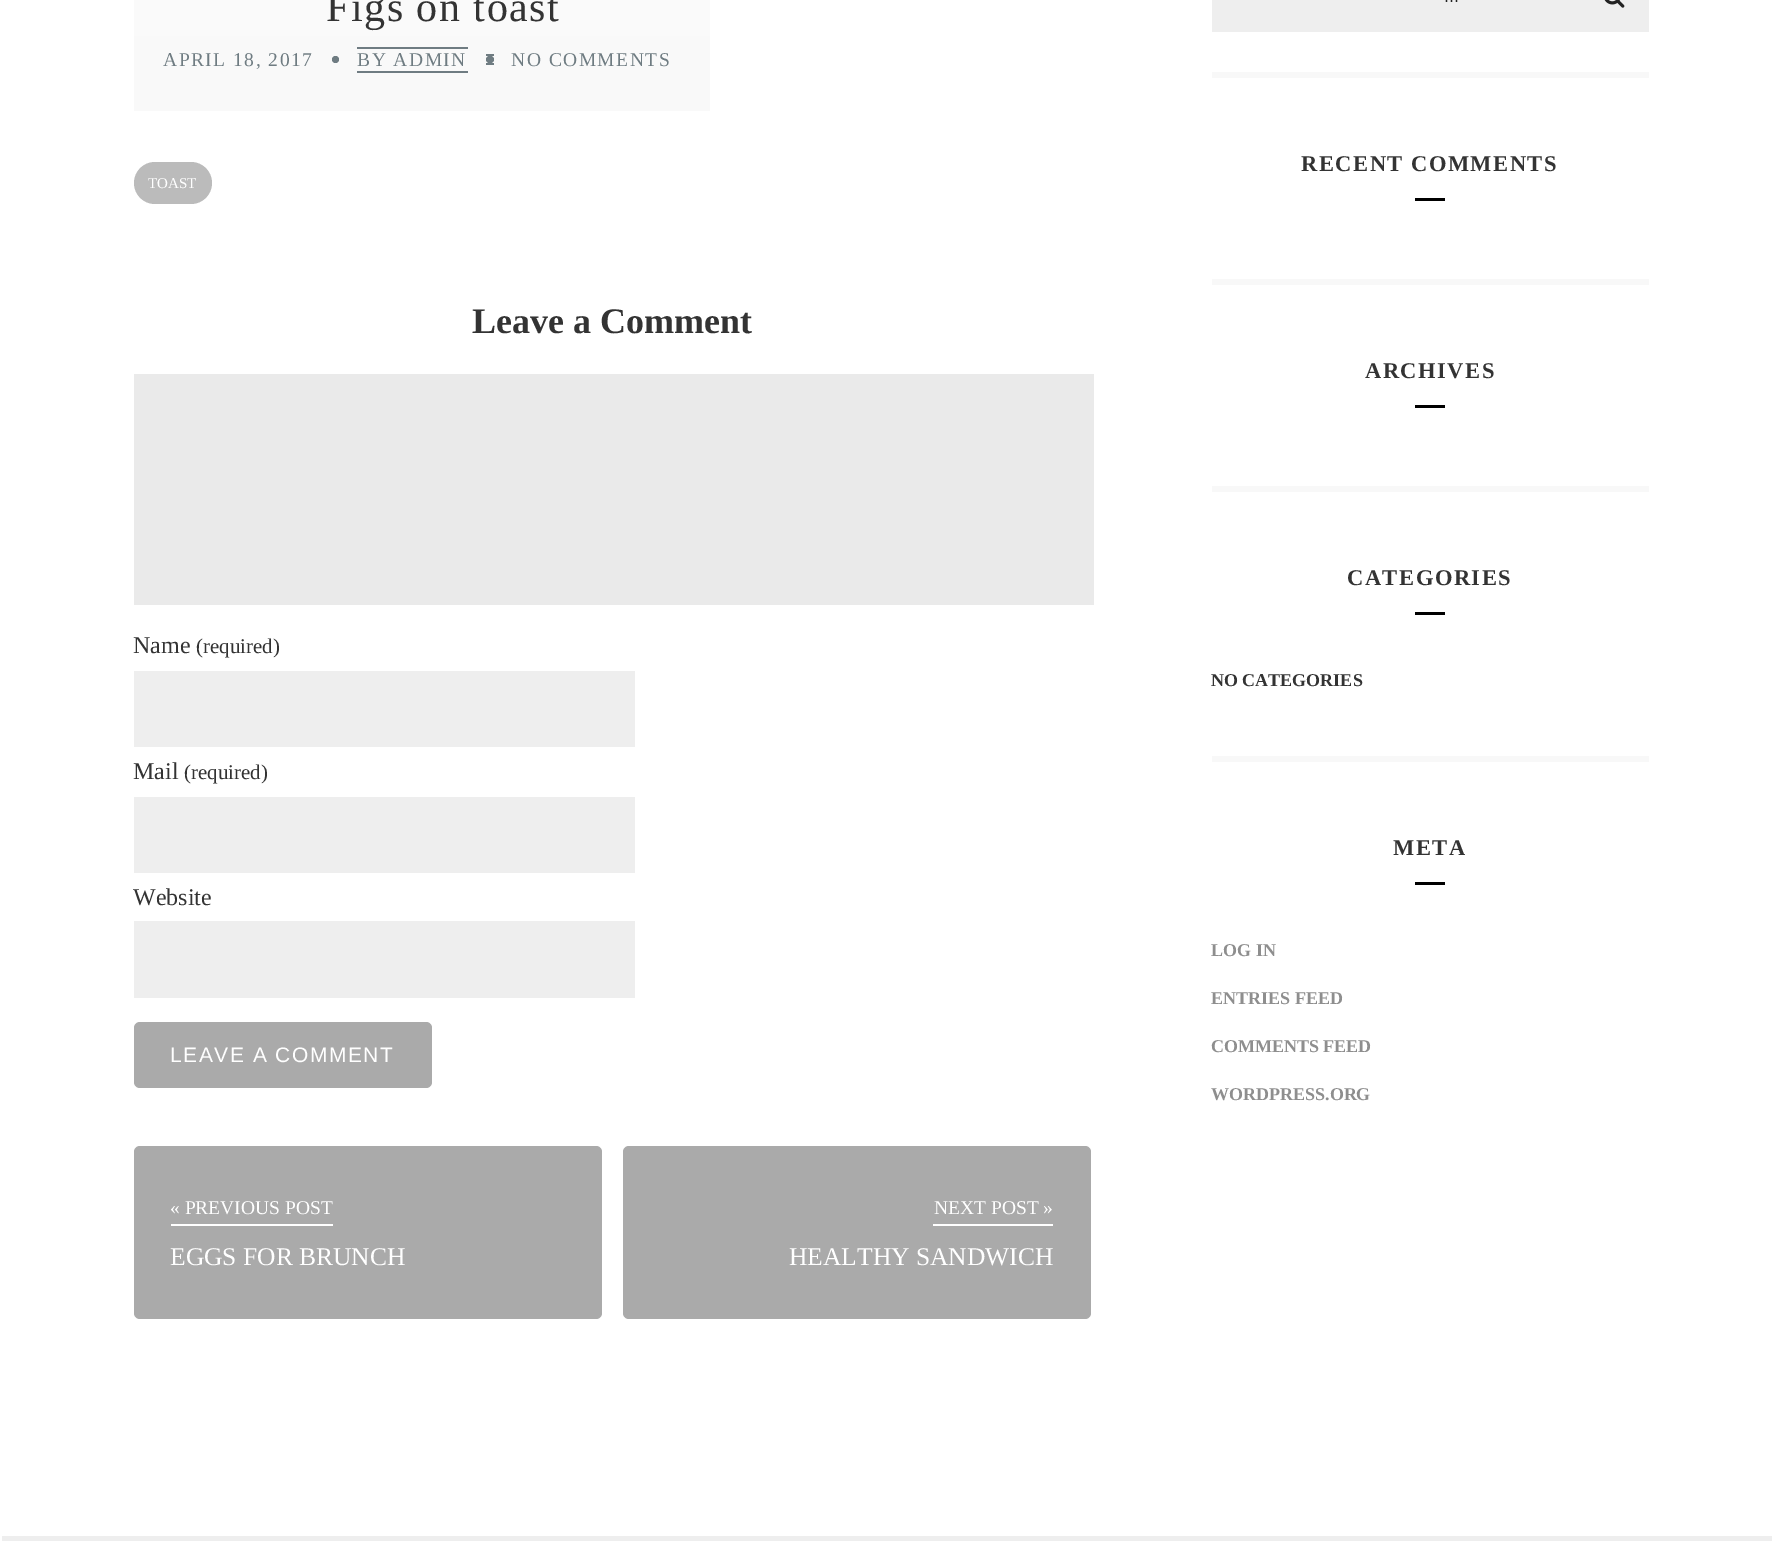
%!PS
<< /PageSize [1773 1549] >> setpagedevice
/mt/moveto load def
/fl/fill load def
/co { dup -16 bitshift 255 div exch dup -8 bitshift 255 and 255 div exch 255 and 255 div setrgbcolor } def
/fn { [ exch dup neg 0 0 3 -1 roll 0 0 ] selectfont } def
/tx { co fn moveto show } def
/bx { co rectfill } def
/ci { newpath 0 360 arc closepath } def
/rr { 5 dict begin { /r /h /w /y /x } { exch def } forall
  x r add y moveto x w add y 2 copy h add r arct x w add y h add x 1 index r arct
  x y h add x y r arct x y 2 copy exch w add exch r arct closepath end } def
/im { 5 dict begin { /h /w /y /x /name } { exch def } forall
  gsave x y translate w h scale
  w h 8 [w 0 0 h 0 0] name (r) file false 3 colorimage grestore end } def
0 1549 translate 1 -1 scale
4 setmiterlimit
0 0 1773 1549 16#FFFFFF bx
134 0 576 36 16#FAFAFA bx
134 36 576 75 16#F9F9F9 bx
16#6F7C82 co
335.5 59.5 3.5 ci fl
357 47 111 2 16#6F7C82 bx
357 71 111 2 16#6F7C82 bx
486 54 8 2 16#6F7C82 bx
486 63 8 2 16#6F7C82 bx
486 56 8 7 3.5 rr fl
16#BBBBBB co
134 162 78 42 21 rr fl
134 374 960 231 16#EAEAEA bx
134 671 501 76 16#EEEEEE bx
134 797 501 76 16#EEEEEE bx
134 921 501 77 16#EEEEEE bx
16#AAAAAA co
134 1022 298 66 6 rr fl
134 1146 468 173 6 rr fl
171 1224 162 2 16#FFFFFF bx
16#AAAAAA co
623 1146 468 173 6 rr fl
933 1224 120 2 16#FFFFFF bx
1212 72 437 6 16#F8F8F8 bx
1212 0 437 32 16#EEEEEE bx
(media/1.raw) 1604 0 21 8 im
1212 279 437 6 16#F8F8F8 bx
1415 198 30 3 16#000000 bx
1212 486 437 6 16#F8F8F8 bx
1415 405 30 3 16#000000 bx
1212 756 437 6 16#F8F8F8 bx
1415 612 30 3 16#000000 bx
1415 882 30 3 16#000000 bx
2 1536 1770 5 16#EEEEEE bx
/LiberationSerif-Regular 42 fn
16#333333 co
326 21 mt 1.5 0 (Figs on toast) ashow
/LiberationSerif-Regular 19.5 fn
16#6F7C82 co
163 66 mt 1.5 0 (APRIL 18, 2017) ashow
357 66 mt 1.5 0 (BY ADMIN) ashow
511 66 mt 1.5 0 (NO COMMENTS) ashow
(TOAST) 148 188 /LiberationSerif-Regular 15 16#FFFFFF tx
(Leave a Comment) 472 333 /LiberationSerif-Bold 36 16#333333 tx
(Name) 133 653 /LiberationSerif-Regular 24 16#333333 tx
(\(required\)) 196 653 /LiberationSerif-Regular 21 16#333333 tx
(Mail) 133 779 /LiberationSerif-Regular 24 16#333333 tx
(\(required\)) 184 779 /LiberationSerif-Regular 21 16#333333 tx
(Website) 133 905 /LiberationSerif-Regular 24 16#333333 tx
/LiberationSans-Regular 21 fn
16#FFFFFF co
170 1062 mt 1.5 0 (LEAVE A COMMENT) ashow
(« PREVIOUS POST) 170 1214 /LiberationSerif-Regular 19.5 16#FFFFFF tx
(EGGS FOR BRUNCH) 170 1265 /LiberationSerif-Regular 25.5 16#FFFFFF tx
(NEXT POST ») 934 1214 /LiberationSerif-Regular 19.5 16#FFFFFF tx
(HEALTHY SANDWICH) 789 1265 /LiberationSerif-Regular 25.5 16#FFFFFF tx
(...) 1444 2 /LiberationSans-Regular 18 16#222222 tx
/LiberationSerif-Bold 22.5 fn
16#333333 co
1301 171 mt 1.5 0 (RECENT COMMENTS) ashow
1365 378 mt 1.5 0 (ARCHIVES) ashow
1347 585 mt 1.5 0 (CATEGORIES) ashow
(NO CATEGORIES) 1211 686 /LiberationSerif-Bold 18 16#333333 tx
/LiberationSerif-Bold 22.5 fn
1393 855 mt 1.5 0 (META) ashow
(LOG IN) 1211 956 /LiberationSerif-Bold 18 16#8E8E8E tx
(ENTRIES FEED) 1211 1004 /LiberationSerif-Bold 18 16#8E8E8E tx
(COMMENTS FEED) 1211 1052 /LiberationSerif-Bold 18 16#8E8E8E tx
(WORDPRESS.ORG) 1211 1100 /LiberationSerif-Bold 18 16#8E8E8E tx
showpage
